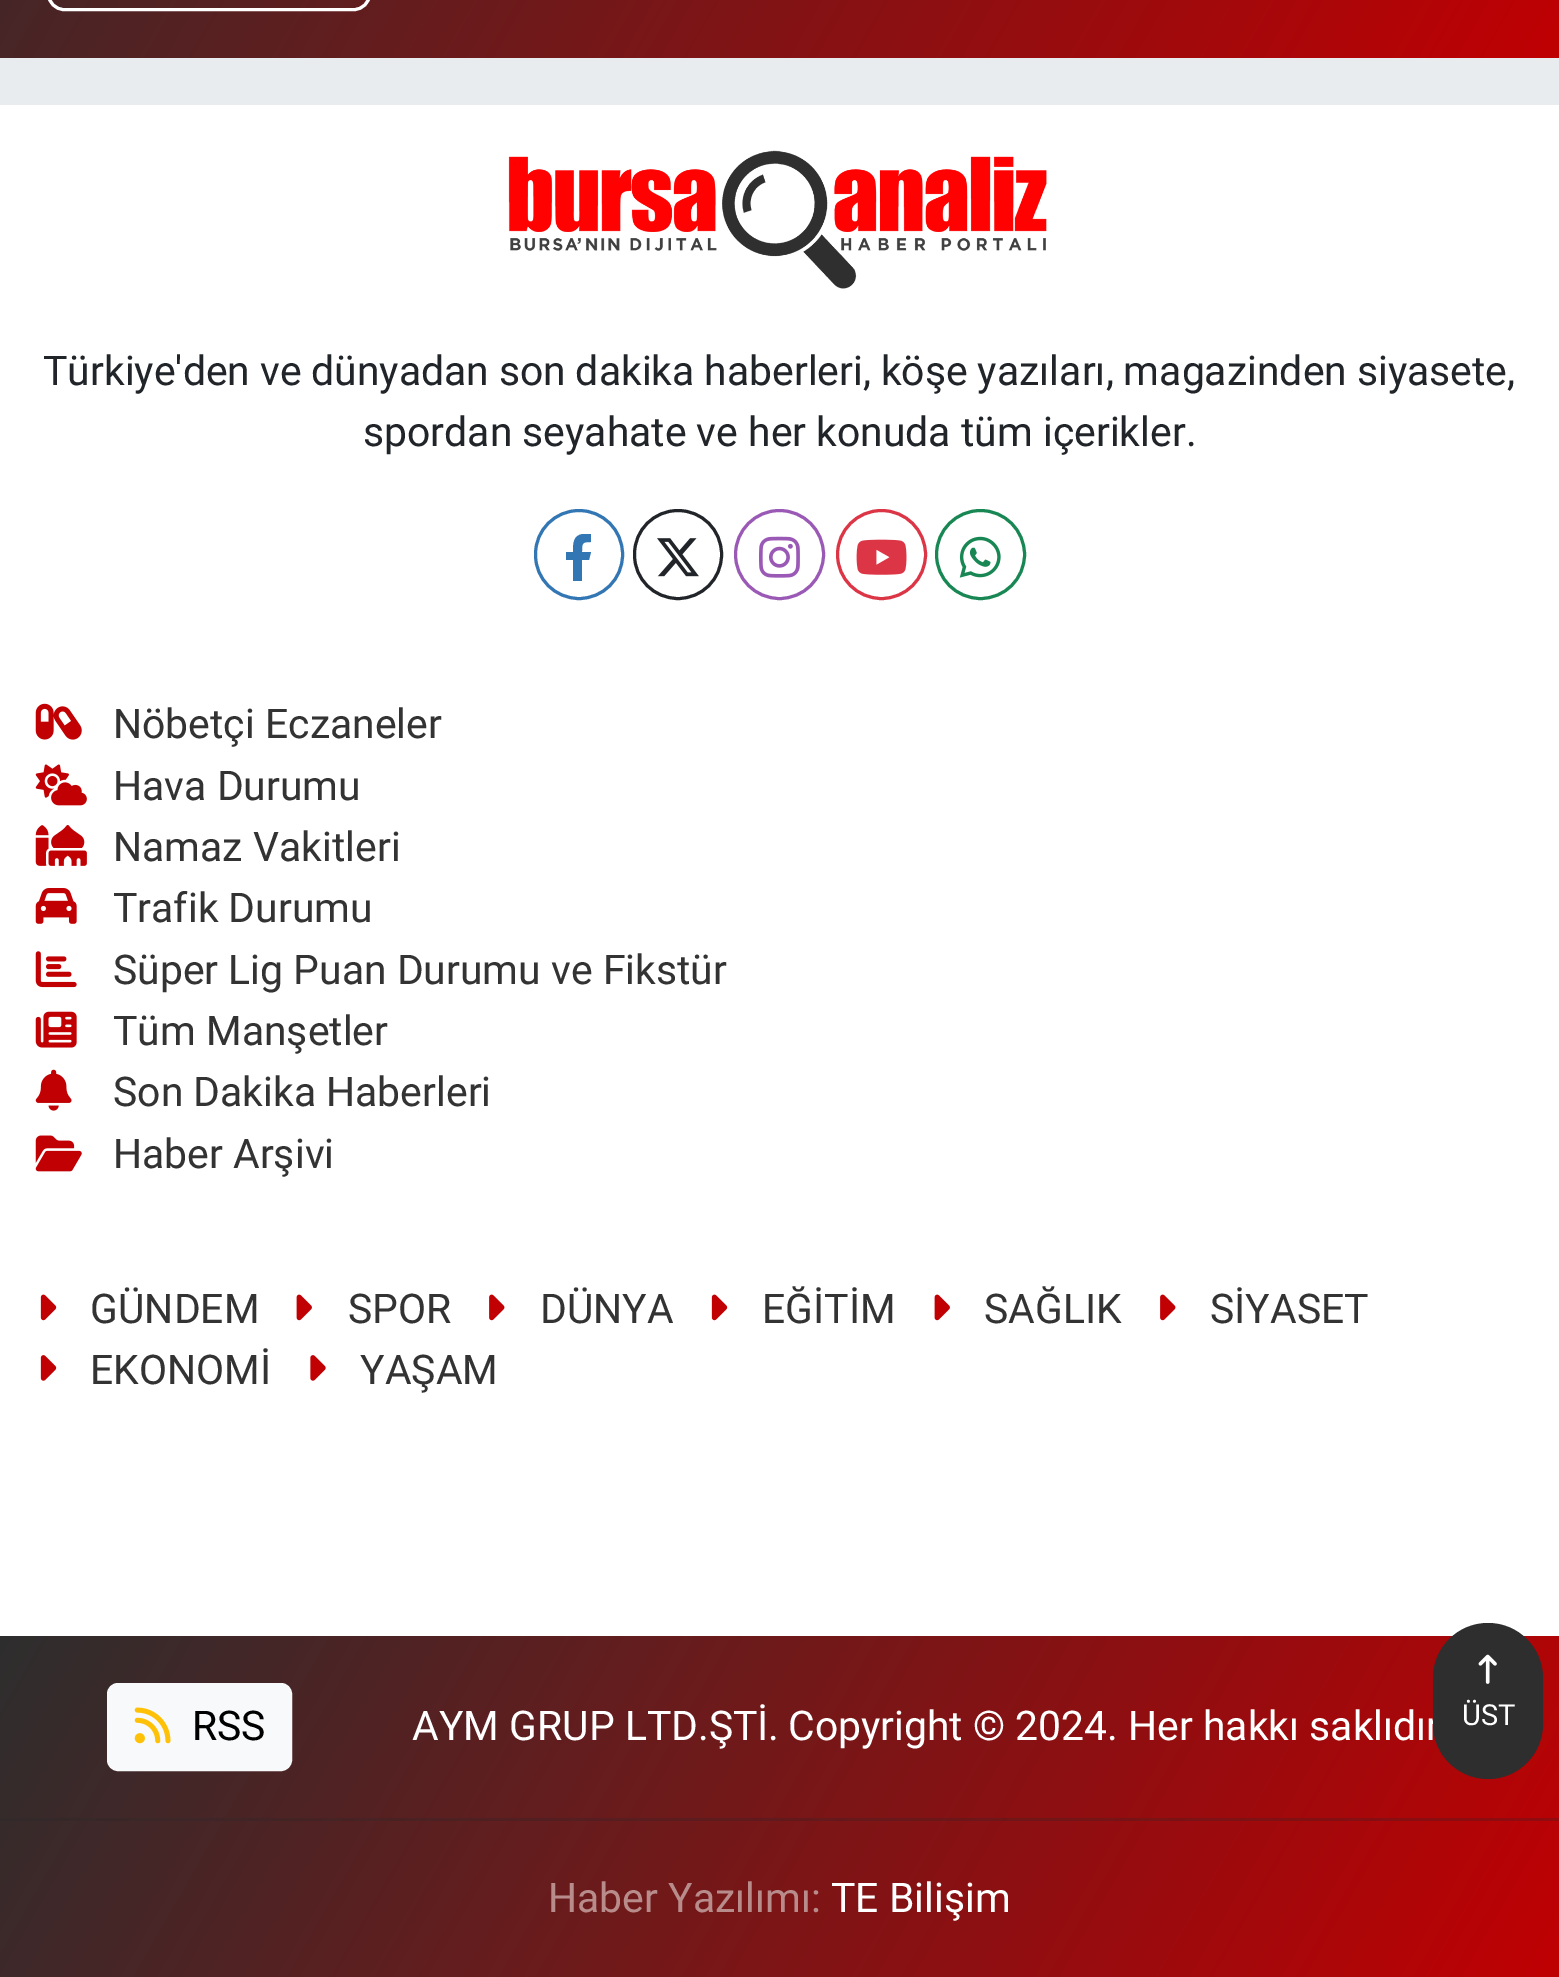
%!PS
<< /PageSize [1559 1977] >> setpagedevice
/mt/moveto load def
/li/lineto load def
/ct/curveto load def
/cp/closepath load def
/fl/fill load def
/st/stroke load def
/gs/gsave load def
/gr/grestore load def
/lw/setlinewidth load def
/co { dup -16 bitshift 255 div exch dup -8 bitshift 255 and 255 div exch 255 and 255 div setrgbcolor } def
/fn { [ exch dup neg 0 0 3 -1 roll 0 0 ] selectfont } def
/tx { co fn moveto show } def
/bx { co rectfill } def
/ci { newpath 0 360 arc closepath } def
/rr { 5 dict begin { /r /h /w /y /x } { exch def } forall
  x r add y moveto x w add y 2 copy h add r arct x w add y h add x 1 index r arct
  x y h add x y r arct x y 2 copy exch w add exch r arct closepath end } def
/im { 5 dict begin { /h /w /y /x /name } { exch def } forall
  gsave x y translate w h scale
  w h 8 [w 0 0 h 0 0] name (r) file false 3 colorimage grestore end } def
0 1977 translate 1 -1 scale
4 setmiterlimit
0 0 1559 1977 16#E9ECEF bx
gs 0 0 mt 1559 0 li 1559 58 li 0 58 li cp clip newpath
<< /ShadingType 2 /ColorSpace /DeviceRGB /Coords [66 -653 1494 172] /Extend [true true] /Function << /FunctionType 2 /Domain [0 1] /C0 [.18 .18 .18] /C1 [.753 0 .012] /N 1 >> >> shfill gr
16#FFFFFF co
3 lw
48.5 -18.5 321 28 15.5 rr st
0 105 1559 1531 16#FFFFFF bx
(media/1.raw) 508 150 539 139 im
16#3276B3 co
535.5 510.5 87 88 43.5 rr st
589 560 mt 591 552 li 582 552 li 582 543 582 542 591 542 ct 591 534 li 583 534 li 573 535 573 544 573 552 ct 566 552 li 566 560 li 573 560 li 573 581 li 582 581 li 582 560 li cp fl
16#212529 co
634.5 510.5 87 88 43.5 rr st
(media/2.raw) 657 538 42 39 im
16#9B59B6 co
779.5 554.5 44 ci st
(media/3.raw) 759 536 41 42 im
16#DC3545 co
881.5 554.5 44 ci st
(media/4.raw) 856 539 51 36 im
16#198754 co
980.5 554.5 44 ci st
(media/5.raw) 959 536 42 42 im
(media/6.raw) 35 703 47 37 im
(media/7.raw) 35 764 52 42 im
(media/8.raw) 35 825 52 41 im
(media/9.raw) 35 888 42 36 im
(media/10.raw) 35 951 42 37 im
(media/11.raw) 35 1011 42 37 im
(media/12.raw) 35 1069 37 42 im
(media/13.raw) 35 1135 47 37 im
(media/14.raw) 40 1294 17 27 im
(media/15.raw) 296 1294 16 27 im
(media/16.raw) 489 1294 16 27 im
(media/14.raw) 711 1294 17 27 im
(media/15.raw) 934 1294 16 27 im
(media/16.raw) 1160 1294 16 27 im
(media/17.raw) 40 1355 17 26 im
(media/18.raw) 310 1355 16 26 im
gs 0 1636 mt 1559 1636 li 1559 1977 li 0 1977 li cp clip newpath
<< /ShadingType 2 /ColorSpace /DeviceRGB /Coords [121 1427 1438 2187] /Extend [true true] /Function << /FunctionType 2 /Domain [0 1] /C0 [.18 .18 .18] /C1 [.753 0 .012] /N 1 >> >> shfill gr
gs 0 1818 mt 1559 1818 li 1559 1821 li 0 1821 li cp clip newpath
<< /ShadingType 2 /ColorSpace /DeviceRGB /Coords [121 1427 1438 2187] /Extend [true true] /Function << /FunctionType 2 /Domain [0 1] /C0 [.169 .173 .176] /C1 [.596 .035 .051] /N 1 >> >> shfill gr
16#F8F9FA co
108.5 1684.5 182 85 9.5 rr gs fl gr
st
(media/19.raw) 134 1707 37 37 im
/Roboto-Regular 40.9 fn
16#212529 co
43 385 mt -.25 0 32 (Türkiye'den ve dünyadan son dakika haberleri, köşe yazıları, magazinden siyasete,) widthshow
(spordan seyahate ve her konuda tüm içerikler.) 363 446 /Roboto-Regular 40.9 16#212529 tx
(Nöbetçi Eczaneler) 113 738 /Roboto-Regular 40.9 16#333333 tx
(Hava Durumu) 113 800 /Roboto-Regular 40.9 16#333333 tx
(Namaz Vakitleri) 113 861 /Roboto-Regular 40.9 16#333333 tx
(Trafik Durumu) 113 922 /Roboto-Regular 40.9 16#333333 tx
(Süper Lig Puan Durumu ve Fikstür) 113 984 /Roboto-Regular 40.9 16#333333 tx
(Tüm Manşetler) 113 1045 /Roboto-Regular 40.9 16#333333 tx
(Son Dakika Haberleri) 113 1106 /Roboto-Regular 40.9 16#333333 tx
(Haber Arşivi) 113 1168 /Roboto-Regular 40.9 16#333333 tx
(GÜNDEM) 90 1323 /Roboto-Regular 40.9 16#333333 tx
(SPOR) 348 1323 /Roboto-Regular 40.9 16#333333 tx
(DÜNYA) 540 1323 /Roboto-Regular 40.9 16#333333 tx
(EĞİTİM) 762 1323 /Roboto-Regular 40.9 16#333333 tx
(SAĞLIK) 984 1323 /Roboto-Regular 40.9 16#333333 tx
(SİYASET) 1210 1323 /Roboto-Regular 40.9 16#333333 tx
(EKONOMİ) 90 1384 /Roboto-Regular 40.9 16#333333 tx
(YAŞAM) 360 1384 /Roboto-Regular 40.9 16#333333 tx
(RSS) 192 1740 /Roboto-Regular 40.9 16#000000 tx
(AYM GRUP LTD.ŞTİ.) 412 1740 /Roboto-Regular 40.9 16#FFFFFF tx
(Copyright © 2024. Her hakkı saklıdır) 788 1740 /Roboto-Regular 40.9 16#FFFFFF tx
(Haber Yazılımı:) 548 1912 /Roboto-Regular 40.9 16#B98C8C tx
(TE Bilişim) 831 1912 /Roboto-Regular 40.9 16#FFFFFF tx
16#2E2E2E co
1433 1623 110 156 55 rr fl
(media/20.raw) 1478 1654 19 30 im
(ÜST) 1462 1725 /Roboto-Regular 29 16#FFFFFF tx
showpage
